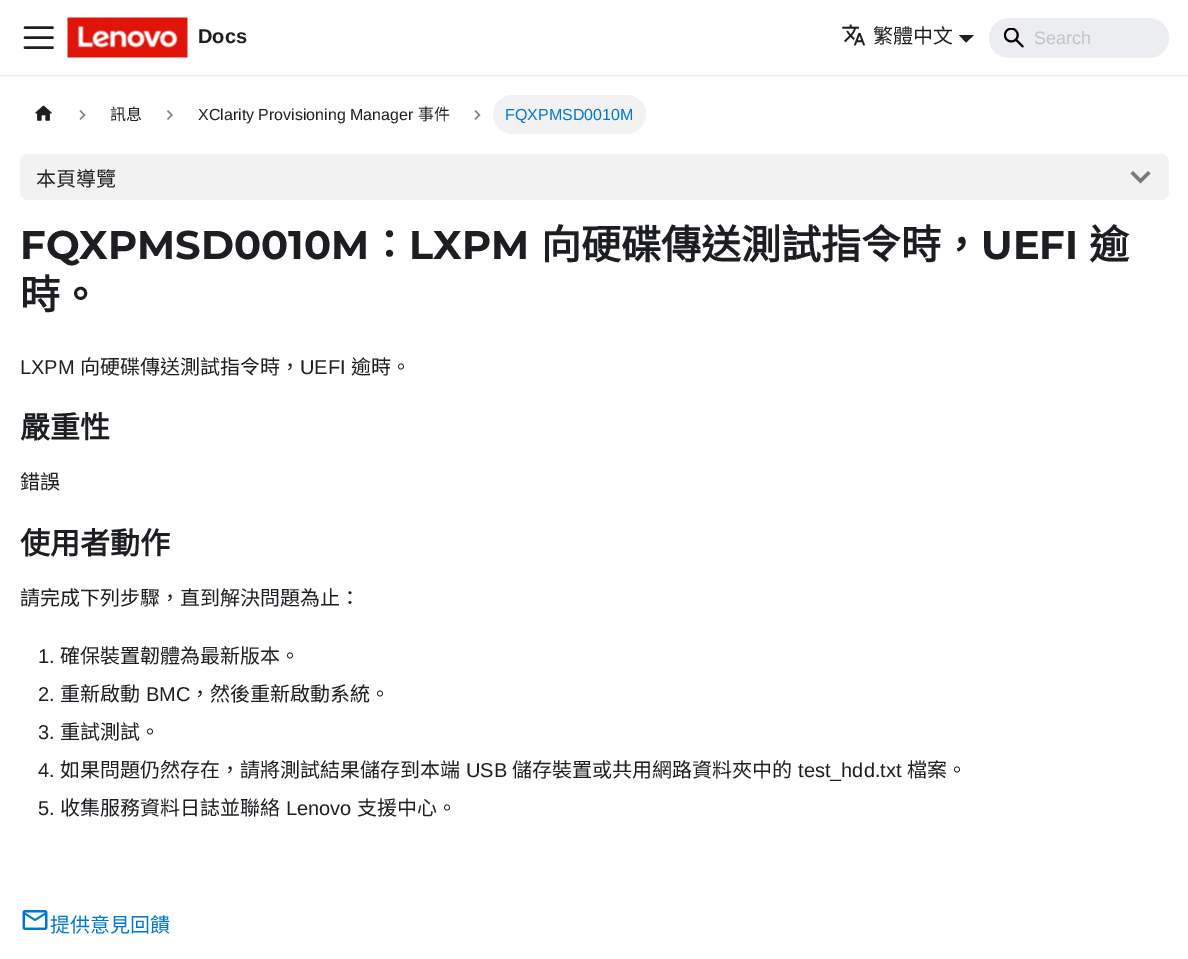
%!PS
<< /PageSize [1188 959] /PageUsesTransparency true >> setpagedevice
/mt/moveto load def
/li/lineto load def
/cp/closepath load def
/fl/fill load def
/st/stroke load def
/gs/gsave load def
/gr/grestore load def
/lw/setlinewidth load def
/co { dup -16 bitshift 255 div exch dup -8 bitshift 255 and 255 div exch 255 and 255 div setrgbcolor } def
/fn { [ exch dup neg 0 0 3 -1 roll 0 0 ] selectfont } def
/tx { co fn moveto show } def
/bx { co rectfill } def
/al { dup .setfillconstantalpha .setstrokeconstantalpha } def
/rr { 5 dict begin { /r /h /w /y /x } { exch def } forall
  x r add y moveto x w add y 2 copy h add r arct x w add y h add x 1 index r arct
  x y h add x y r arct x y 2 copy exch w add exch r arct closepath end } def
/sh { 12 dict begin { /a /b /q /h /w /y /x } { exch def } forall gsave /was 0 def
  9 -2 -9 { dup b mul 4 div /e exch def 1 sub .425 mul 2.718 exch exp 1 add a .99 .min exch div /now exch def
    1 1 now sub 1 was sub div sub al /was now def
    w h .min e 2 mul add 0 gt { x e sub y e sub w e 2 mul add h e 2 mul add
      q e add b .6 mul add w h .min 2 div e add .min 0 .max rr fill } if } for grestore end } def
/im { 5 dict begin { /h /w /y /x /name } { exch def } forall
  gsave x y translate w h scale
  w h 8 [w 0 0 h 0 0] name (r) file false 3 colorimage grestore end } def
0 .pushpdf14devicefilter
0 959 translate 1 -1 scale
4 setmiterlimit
0 0 1188 959 16#FFFFFF bx
gs
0 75 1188 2 rectclip
16#000000 co
0 1 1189 75 0 1 .1 sh
gr
16#1C1E21 co
2.5 lw
1 setlinecap
25 27.5 mt 52.5 27.5 li 25 37.5 mt 52.5 37.5 li 25 47.5 mt 52.5 47.5 li st
(media/1.raw) 67 17 121 41 im
(media/2.raw) 842 24 24 22 im
959 35 mt 974 35 li 966 42.5 li cp fl
16#EBEDF0 co
989 18 180 40 20 rr fl
(media/3.raw) 1004 28 20 20 im
(media/4.raw) 35 105 17 16 im
(media/5.raw) 79 110 7 10 im
(media/6.raw) 167 110 6 10 im
(media/5.raw) 474 110 7 10 im
16#F2F2F2 co
493 95 153 39 19.5 rr fl
20 154 1149 46 8 rr fl
16#797979 co
1148 171 mt 1140.5 178.5 li 1133 171 li 1130.5 173.5 li 1140.5 183.5 li 1150.5 173.5 li cp fl
(media/7.raw) 22 910 26 20 im
(Docs) 198 43 /LiberationSans-Bold 20 16#1C1E21 tx
(繁體中文) 873 43 /NotoSansCJKTC-Regular 20 16#1C1E21 tx
(Search) 1034 44 /LiberationSans-Regular 18 16#BEC3C9 tx
(訊息) 110 120 /NotoSansCJKTC-Regular 16 16#1C1E21 tx
(XClarity Provisioning Manager) 198 120 /LiberationSans-Regular 16 16#1C1E21 tx
(事件) 418 120 /NotoSansCJKTC-Regular 16 16#1C1E21 tx
(FQXPMSD0010M) 505 120 /LiberationSans-Regular 16 16#0078D0 tx
(本頁導覽) 36 186 /NotoSansCJKTC-Regular 20 16#1C1E21 tx
(FQXPMSD0010M) 20 259 /Montserrat-Bold 40 16#1C1E21 tx
(：) 369 259 /NotoSansCJKTC-Bold 40 16#1C1E21 tx
(LXPM) 409 259 /Montserrat-Bold 40 16#1C1E21 tx
(向硬碟傳送測試指令時，) 541 259 /NotoSansCJKTC-Bold 40 16#1C1E21 tx
(UEFI) 981 259 /Montserrat-Bold 40 16#1C1E21 tx
(逾) 1089 259 /NotoSansCJKTC-Bold 40 16#1C1E21 tx
(時。) 20 309 /NotoSansCJKTC-Bold 40 16#1C1E21 tx
(LXPM) 20 374 /LiberationSans-Regular 20 16#1C1E21 tx
(向硬碟傳送測試指令時，) 80 374 /NotoSansCJKTC-Regular 20 16#1C1E21 tx
(UEFI) 300 374 /LiberationSans-Regular 20 16#1C1E21 tx
(逾時。) 351 374 /NotoSansCJKTC-Regular 20 16#1C1E21 tx
(嚴重性) 20 438 /NotoSansCJKTC-Bold 30 16#1C1E21 tx
(錯誤) 20 489 /NotoSansCJKTC-Regular 20 16#1C1E21 tx
(使用者動作) 20 554 /NotoSansCJKTC-Bold 30 16#1C1E21 tx
(請完成下列步驟，直到解決問題為止：) 20 605 /NotoSansCJKTC-Regular 20 16#1C1E21 tx
(1.) 38 663 /LiberationSans-Regular 20 16#1C1E21 tx
(確保裝置韌體為最新版本。) 60 663 /NotoSansCJKTC-Regular 20 16#1C1E21 tx
(2.) 38 701 /LiberationSans-Regular 20 16#1C1E21 tx
(重新啟動) 60 701 /NotoSansCJKTC-Regular 20 16#1C1E21 tx
(BMC) 146 701 /LiberationSans-Regular 20 16#1C1E21 tx
(，然後重新啟動系統。) 190 701 /NotoSansCJKTC-Regular 20 16#1C1E21 tx
(3.) 38 739 /LiberationSans-Regular 20 16#1C1E21 tx
(重試測試。) 60 739 /NotoSansCJKTC-Regular 20 16#1C1E21 tx
(4.) 38 777 /LiberationSans-Regular 20 16#1C1E21 tx
(如果問題仍然存在，請將測試結果儲存到本端) 60 777 /NotoSansCJKTC-Regular 20 16#1C1E21 tx
(USB) 466 777 /LiberationSans-Regular 20 16#1C1E21 tx
(儲存裝置或共用網路資料夾中的) 512 777 /NotoSansCJKTC-Regular 20 16#1C1E21 tx
(test_hdd.txt) 798 777 /LiberationSans-Regular 20 16#1C1E21 tx
(檔案。) 907 777 /NotoSansCJKTC-Regular 20 16#1C1E21 tx
(5.) 38 815 /LiberationSans-Regular 20 16#1C1E21 tx
(收集服務資料日誌並聯絡) 60 815 /NotoSansCJKTC-Regular 20 16#1C1E21 tx
(Lenovo) 286 815 /LiberationSans-Regular 20 16#1C1E21 tx
(支援中心。) 357 815 /NotoSansCJKTC-Regular 20 16#1C1E21 tx
(提供意見回饋) 50 932 /NotoSansCJKTC-Regular 20 16#0078D0 tx
.poppdf14devicefilter showpage
